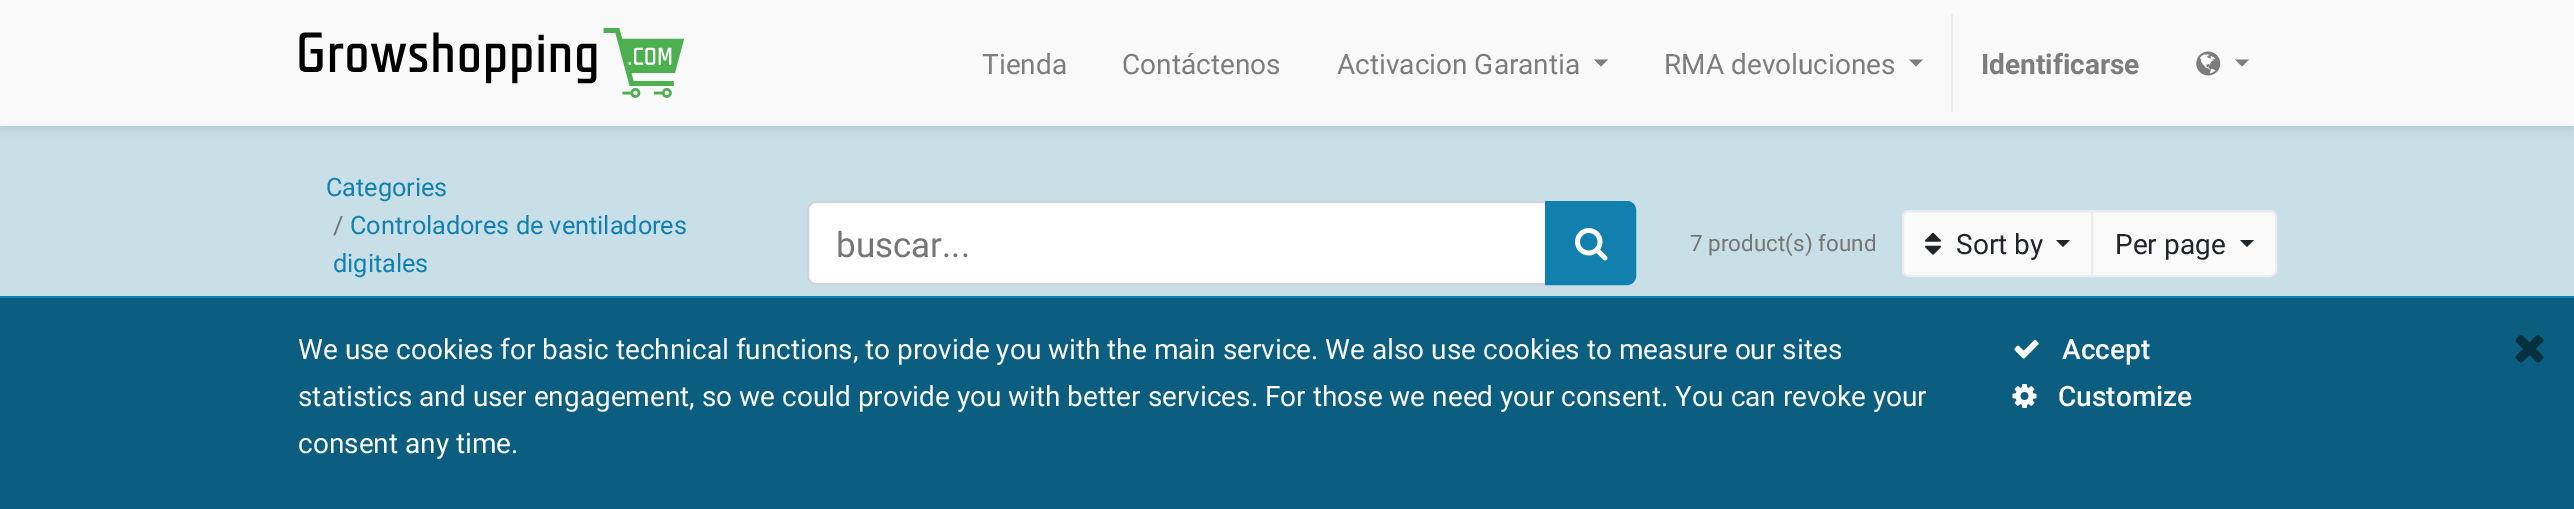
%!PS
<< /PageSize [2574 509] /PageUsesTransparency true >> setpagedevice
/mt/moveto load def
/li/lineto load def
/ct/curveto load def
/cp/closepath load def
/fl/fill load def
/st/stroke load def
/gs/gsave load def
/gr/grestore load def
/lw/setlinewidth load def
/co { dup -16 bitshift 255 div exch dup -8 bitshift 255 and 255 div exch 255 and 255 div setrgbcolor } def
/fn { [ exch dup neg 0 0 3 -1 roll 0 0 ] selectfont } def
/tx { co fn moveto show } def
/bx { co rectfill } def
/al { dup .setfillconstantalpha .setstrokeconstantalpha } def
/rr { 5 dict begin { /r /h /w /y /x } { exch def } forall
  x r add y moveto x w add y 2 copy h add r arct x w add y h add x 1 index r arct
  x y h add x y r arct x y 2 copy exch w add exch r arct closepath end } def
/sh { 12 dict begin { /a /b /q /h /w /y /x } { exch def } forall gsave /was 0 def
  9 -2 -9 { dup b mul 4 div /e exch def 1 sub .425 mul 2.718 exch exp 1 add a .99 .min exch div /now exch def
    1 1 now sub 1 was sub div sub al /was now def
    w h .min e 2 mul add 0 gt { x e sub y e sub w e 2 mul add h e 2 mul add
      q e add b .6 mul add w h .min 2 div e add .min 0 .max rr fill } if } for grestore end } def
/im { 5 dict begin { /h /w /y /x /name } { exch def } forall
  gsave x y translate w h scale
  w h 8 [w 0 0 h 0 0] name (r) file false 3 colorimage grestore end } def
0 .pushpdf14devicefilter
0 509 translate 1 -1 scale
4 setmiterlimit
0 0 2574 509 16#C9DFE8 bx
16#000000 co
0 4 2574 126 0 3.5 .07 sh
0 0 2574 126 16#F9F9F9 bx
(media/1.raw) 299 28 385 70 im
16#7D7D7D co
1594 59.5 mt 1608 59.5 li 1601 66.5 li cp fl
1909 59.5 mt 1923 59.5 li 1916 66.5 li cp fl
1951 14 2 98 16#E9ECEF bx
(media/2.raw) 2196 51 25 25 im
16#7D7D7D co
2235 59.5 mt 2249 59.5 li 2242 66.5 li cp fl
16#FFFFFF co
816 202 mt 1546 202 li 1546 284 li 816 284 li 811.5 284 808 280.5 808 276 ct 808 210 li 808 205.5 811.5 202 816 202 ct cp gs fl gr
16#CED4DA co
2 lw
st
16#1180AE co
1546 202 mt 1627 202 li 1631.5 202 1635 205.5 1635 210 ct 1635 276 li 1635 280.5 1631.5 284 1627 284 ct 1546 284 li cp gs fl gr
st
(media/3.raw) 1575 228 33 33 im
16#FAFAFB co
1909 211 mt 2092 211 li 2092 276 li 1909 276 li 1905.5 276 1903 273.5 1903 270 ct 1903 217 li 1903 213.5 1905.5 211 1909 211 ct cp gs fl gr
16#ECECF0 co
st
(media/4.raw) 1925 232 16 23 im
16#212529 co
2056 240 mt 2070 240 li 2063 247 li cp fl
16#FAFAFB co
2092 211 mt 2270 211 li 2273.5 211 2276 213.5 2276 217 ct 2276 270 li 2276 273.5 2273.5 276 2270 276 ct 2092 276 li cp gs fl gr
16#ECECF0 co
st
16#212529 co
2240 240 mt 2254 240 li 2247 247 li cp fl
0 298 2574 211 16#0C5E80 bx
0 296 2574 2 16#1180AE bx
(media/5.raw) 2014 340 25 19 im
(media/6.raw) 2012 384 25 24 im
(media/7.raw) 2515 334 29 29 im
(Tienda) 982 74 /Roboto-Regular 28 16#7D7D7D tx
(Contáctenos) 1122 74 /Roboto-Regular 28 16#7D7D7D tx
(Activacion Garantia) 1337 74 /Roboto-Regular 28 16#7D7D7D tx
(RMA devoluciones) 1664 74 /Roboto-Regular 28 16#7D7D7D tx
(Identificarse) 1981 74 /Roboto-Bold 28 16#7D7D7D tx
(Categories) 326 196 /Roboto-Regular 25.25 16#1180AE tx
(/) 333 234 /Roboto-Regular 25.25 16#757575 tx
(Controladores de ventiladores) 350 234 /Roboto-Regular 25.25 16#1180AE tx
(digitales) 333 272 /Roboto-Regular 25.25 16#1180AE tx
(buscar...) 836 257 /Roboto-Regular 35 16#757575 tx
(7 product\(s\) found) 1690 251 /Roboto-Regular 22.5 16#757575 tx
(Sort by) 1956 254 /Roboto-Regular 28 16#212529 tx
(Per page) 2115 254 /Roboto-Regular 28 16#212529 tx
(We use cookies for basic technical functions, to provide you with the main service. We also use cookies to measure our sites) 298 359 /Roboto-Regular 28 16#FAFAFB tx
(statistics and user engagement, so we could provide you with better services. For those we need your consent. You can revoke your) 298 406 /Roboto-Regular 28 16#FAFAFB tx
(consent any time.) 298 453 /Roboto-Regular 28 16#FAFAFB tx
(Accept) 2062 359 /Roboto-Medium 28 16#FAFAFB tx
(Customize) 2058 406 /Roboto-Medium 28 16#FAFAFB tx
.poppdf14devicefilter showpage
